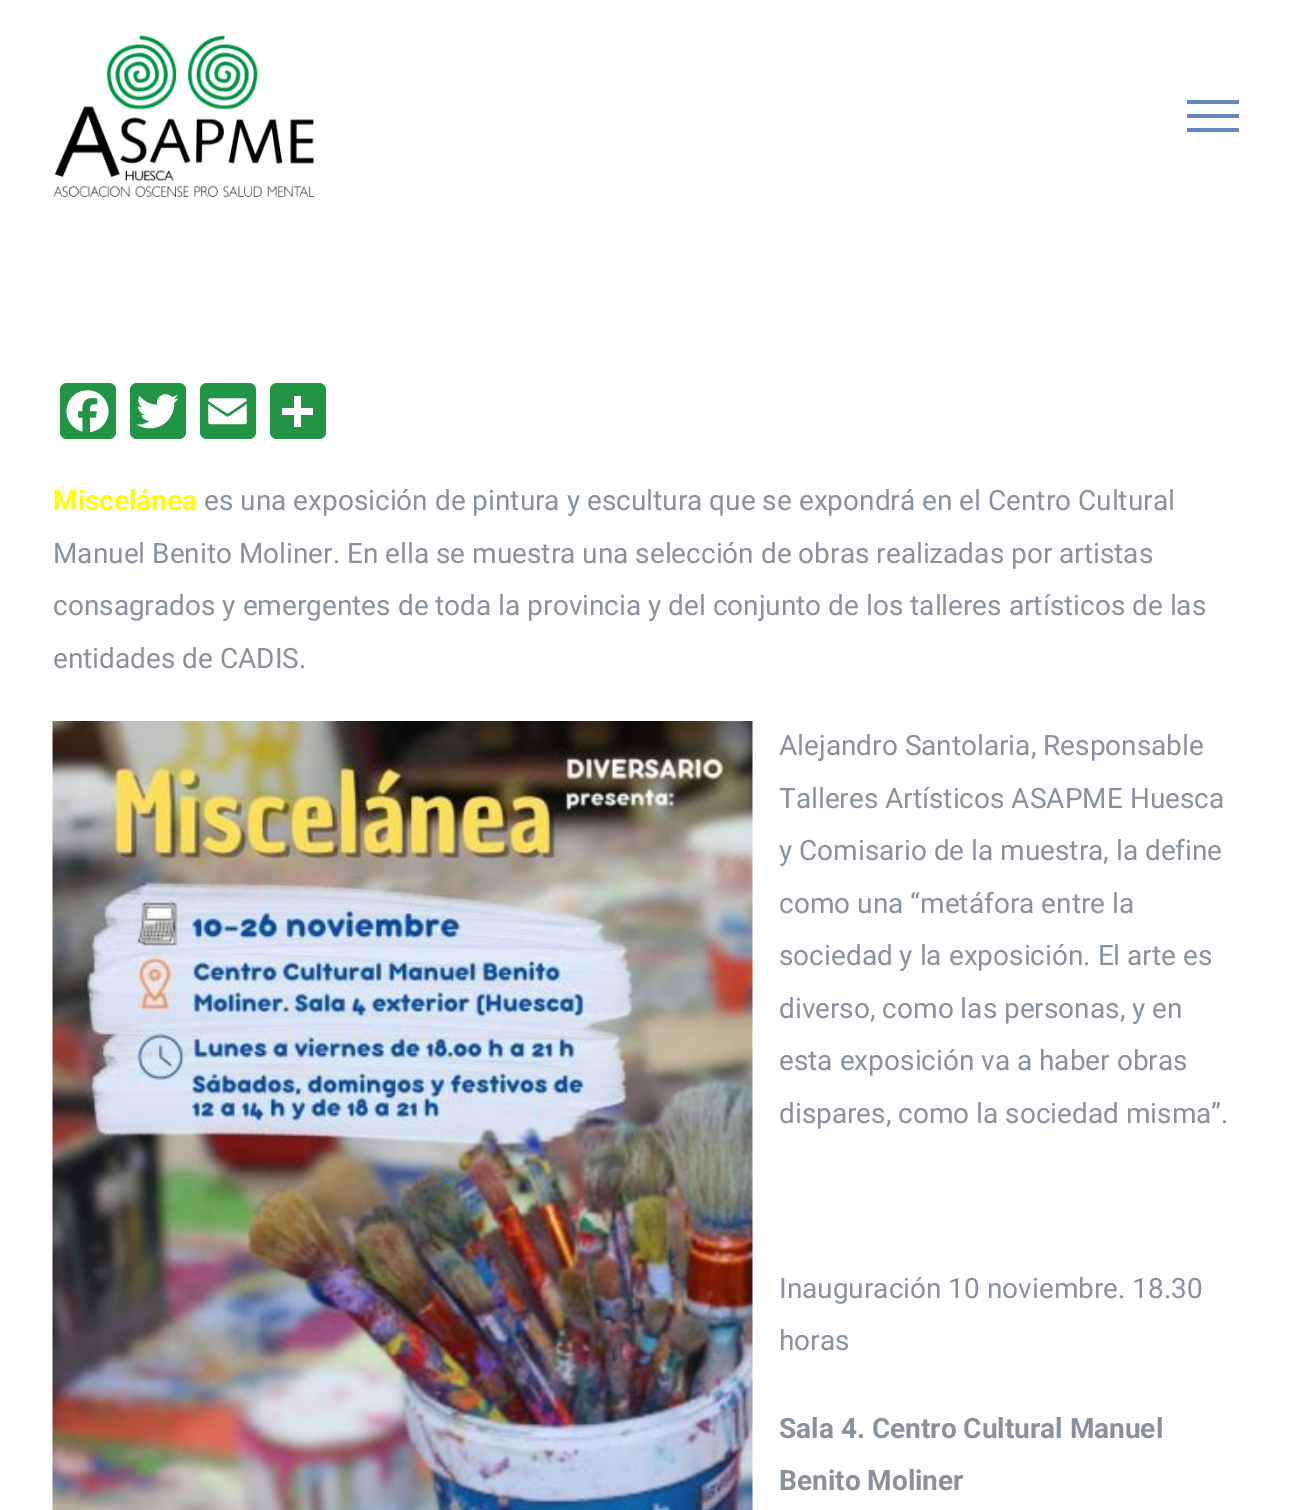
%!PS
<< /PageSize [1291 1510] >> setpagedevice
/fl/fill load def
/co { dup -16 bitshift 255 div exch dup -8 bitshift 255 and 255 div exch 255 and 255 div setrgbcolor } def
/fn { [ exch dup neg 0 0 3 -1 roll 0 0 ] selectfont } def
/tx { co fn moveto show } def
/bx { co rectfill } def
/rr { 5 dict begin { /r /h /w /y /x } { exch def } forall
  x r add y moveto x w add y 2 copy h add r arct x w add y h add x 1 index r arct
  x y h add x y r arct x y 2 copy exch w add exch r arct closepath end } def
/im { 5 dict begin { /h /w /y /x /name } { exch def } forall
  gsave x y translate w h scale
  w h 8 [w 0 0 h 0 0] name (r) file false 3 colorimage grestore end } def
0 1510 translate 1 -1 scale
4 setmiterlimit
0 0 1291 1510 16#FFFFFF bx
(media/1.raw) 53 35 262 162 im
1187 100 52 4 16#6487C2 bx
1187 114 52 4 16#6487C2 bx
1187 128 52 4 16#6487C2 bx
16#229446 co
60 383 56 56 7 rr fl
(media/2.raw) 66 390 43 43 im
130 383 56 56 7 rr fl
(media/3.raw) 136 394 43 35 im
200 383 56 56 7 rr fl
(media/4.raw) 208 398 39 27 im
270 383 56 56 7 rr fl
294 396 7 31 16#FFFFFF bx
282 408 31 7 16#FFFFFF bx
(media/5.raw) 52 721 701 789 im
(Miscelánea) 53 510 /Roboto-Bold 28 16#FFFF00 tx
(es una exposición de pintura y escultura que se expondrá en el Centro Cultural) 204 510 /Roboto-Regular 28 16#86939E tx
(Manuel Benito Moliner. En ella se muestra una selección de obras realizadas por artistas) 53 563 /Roboto-Regular 28 16#86939E tx
(consagrados y emergentes de toda la provincia y del conjunto de los talleres artísticos de las) 53 615 /Roboto-Regular 28 16#86939E tx
(entidades de CADIS.) 53 668 /Roboto-Regular 28 16#86939E tx
(Alejandro Santolaria, Responsable) 779 755 /Roboto-Regular 28 16#86939E tx
(Talleres Artísticos ASAPME Huesca) 779 808 /Roboto-Regular 28 16#86939E tx
(y Comisario de la muestra, la define) 779 860 /Roboto-Regular 28 16#86939E tx
(como una “metáfora entre la) 779 913 /Roboto-Regular 28 16#86939E tx
(sociedad y la exposición. El arte es) 779 965 /Roboto-Regular 28 16#86939E tx
(diverso, como las personas, y en) 779 1018 /Roboto-Regular 28 16#86939E tx
(esta exposición va a haber obras) 779 1070 /Roboto-Regular 28 16#86939E tx
(dispares, como la sociedad misma”.) 779 1123 /Roboto-Regular 28 16#86939E tx
(Inauguración 10 noviembre. 18.30) 779 1298 /Roboto-Regular 28 16#86939E tx
(horas) 779 1350 /Roboto-Regular 28 16#86939E tx
(Sala 4. Centro Cultural Manuel) 779 1438 /Roboto-Bold 28 16#86939E tx
(Benito Moliner) 779 1490 /Roboto-Bold 28 16#86939E tx
showpage
